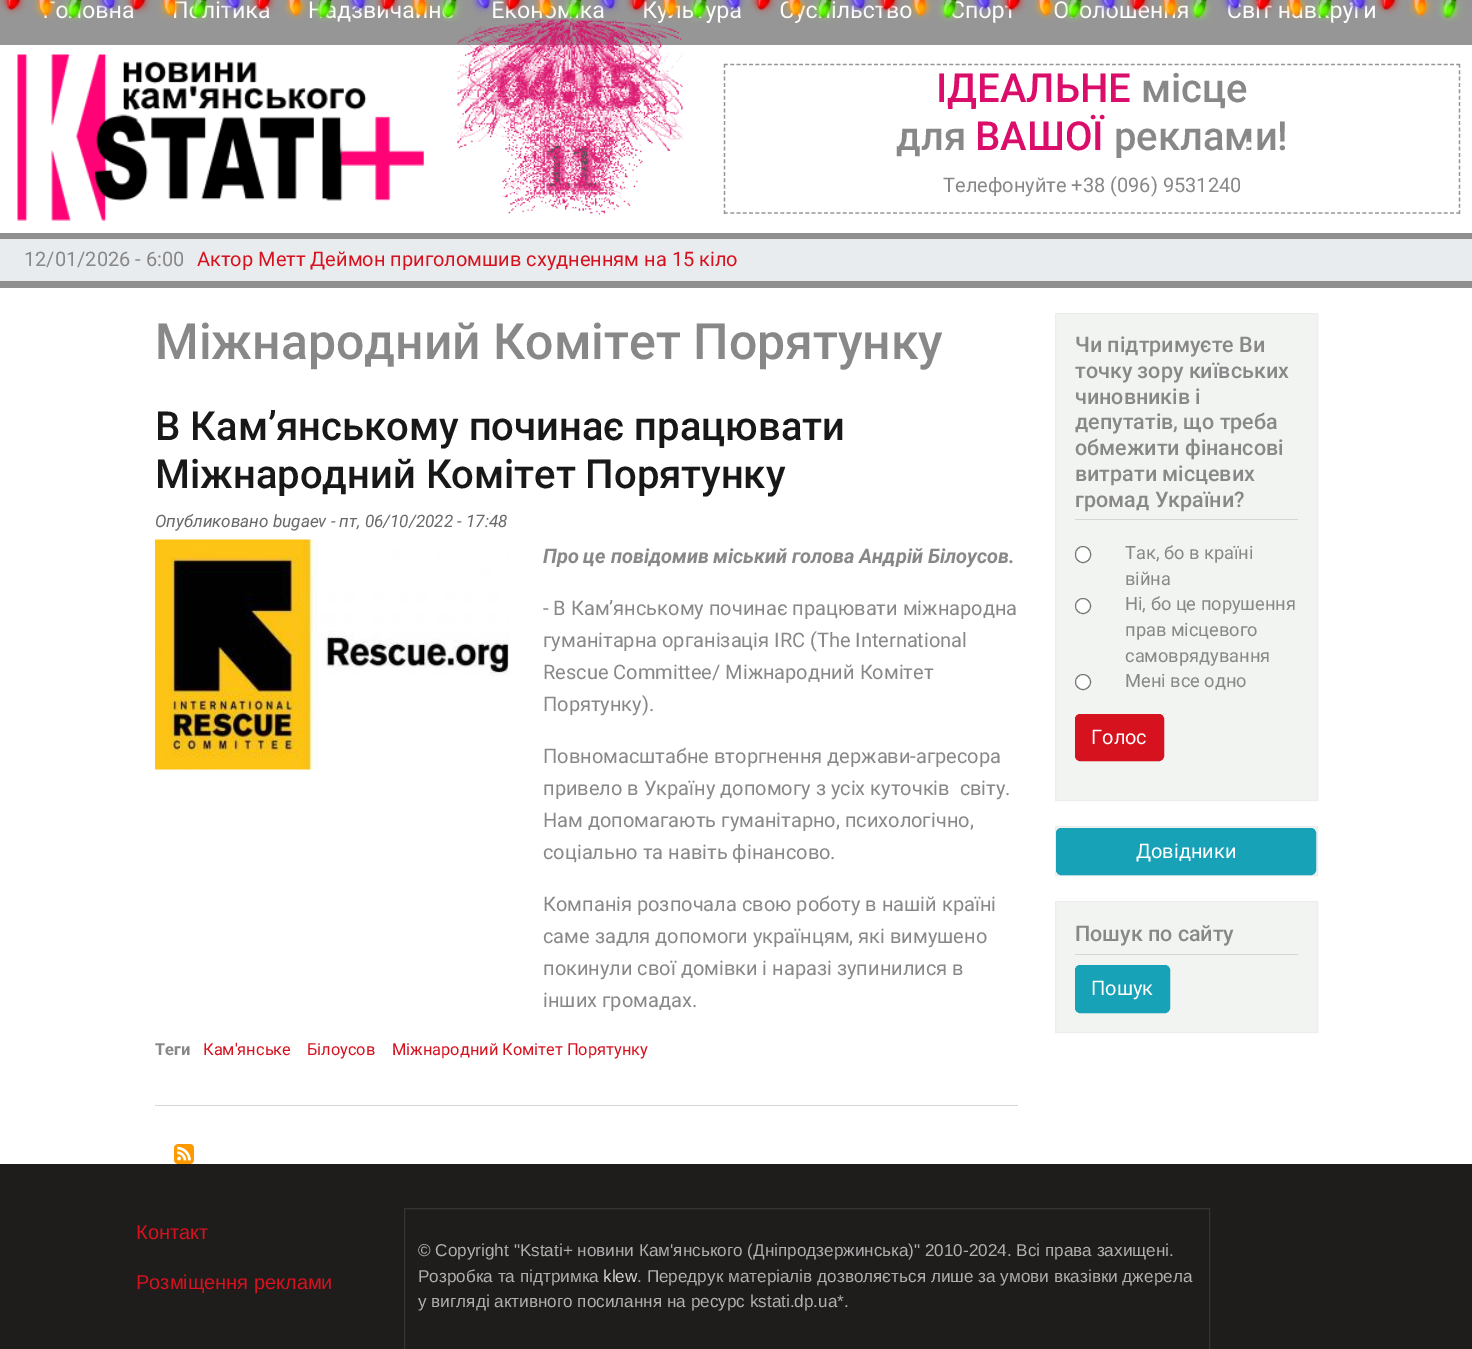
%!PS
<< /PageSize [1472 1349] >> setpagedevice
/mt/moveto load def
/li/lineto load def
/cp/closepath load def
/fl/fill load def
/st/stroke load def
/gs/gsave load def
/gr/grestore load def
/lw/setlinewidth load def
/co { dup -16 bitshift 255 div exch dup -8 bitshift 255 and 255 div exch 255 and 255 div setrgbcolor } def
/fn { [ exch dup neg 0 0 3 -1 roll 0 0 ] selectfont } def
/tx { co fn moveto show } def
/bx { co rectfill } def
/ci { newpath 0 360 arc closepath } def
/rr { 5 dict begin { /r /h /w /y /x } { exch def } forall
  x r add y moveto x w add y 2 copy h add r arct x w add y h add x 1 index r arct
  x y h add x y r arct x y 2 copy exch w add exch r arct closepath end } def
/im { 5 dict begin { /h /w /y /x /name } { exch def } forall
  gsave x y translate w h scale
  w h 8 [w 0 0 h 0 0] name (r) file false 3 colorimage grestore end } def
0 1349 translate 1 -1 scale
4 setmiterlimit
0 0 1472 1349 16#FFFFFF bx
0 0 1472 45 16#969696 bx
(media/2.raw) 17 54 407 167 im
(media/3.raw) 457 19 226 196 im
1.2 lw
[3.75 2.51] 0 setdash
724 64.5 mt 1460 64.5 li st
[3.75 2.61] 0 setdash
1459.5 64 mt 1459.5 214 li st
[3.75 2.51] 0 setdash
724 213 mt 1460 213 li st
[3.75 2.61] 0 setdash
724.5 64 mt 724.5 214 li st
0 239 1472 42 16#E9ECEF bx
0 233 1472 6 16#8F8F8F bx
0 281 1472 7 16#8F8F8F bx
155 1105 863 1 16#D3D7D9 bx
(media/4.raw) 155 539 355 231 im
(media/5.raw) 174 1144 20 20 im
16#F1F4F0 co
1055.5 313.5 mt 1317.5 313.5 li 1317.5 800.5 li 1055.5 800.5 li cp gs fl gr
16#EDEDED co
1 lw
[] 0 setdash
st
1075 519 223 1 16#D6D6D6 bx
16#FFFFFF co
1075.5 546.5 15 16 7.5 rr gs fl gr
16#767676 co
st
16#FFFFFF co
1083 606 7.5 ci gs fl gr
16#767676 co
st
16#FFFFFF co
1083 682 7.5 ci gs fl gr
16#767676 co
st
16#D6121F co
1075.5 714.5 88 46 4.5 rr gs fl gr
st
16#F1F4F0 co
1055.5 826.5 mt 1317.5 826.5 li 1317.5 875.5 li 1055.5 875.5 li cp gs fl gr
16#EDEDED co
st
16#17A2B8 co
1056.5 828.5 259 46 4.5 rr gs fl gr
st
16#F1F4F0 co
1055.5 901.5 mt 1317.5 901.5 li 1317.5 1032.5 li 1055.5 1032.5 li cp gs fl gr
16#EDEDED co
st
1075 954 223 1 16#D6D6D6 bx
16#17A2B8 co
1075.5 965.5 94 47 4.5 rr gs fl gr
st
0 1164 1472 185 16#1F1D1C bx
16#353433 co
404.5 1208.5 805 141 rectstroke
(оловна) 55 18 /Roboto-Regular 23.25 16#FFFFFF tx
(Політика) 172 18 /Roboto-Regular 23.25 16#FFFFFF tx
(дзвичайн) 337 18 /Roboto-Regular 23.25 16#FFFFFF tx
(Еко) 491 18 /Roboto-Regular 23.25 16#FFFFFF tx
(ка) 580 18 /Roboto-Regular 23.25 16#FFFFFF tx
(К) 642 18 /Roboto-Regular 23.25 16#FFFFFF tx
(ьтур) 682 18 /Roboto-Regular 23.25 16#FFFFFF tx
(Суспільство) 779 18 /Roboto-Regular 23.25 16#FFFFFF tx
(Спорт) 950 18 /Roboto-Regular 23.25 16#FFFFFF tx
(Огол) 1053 18 /Roboto-Regular 23.25 16#FFFFFF tx
(ення) 1138 18 /Roboto-Regular 23.25 16#FFFFFF tx
(в) 1242 18 /Roboto-Regular 23.25 16#FFFFFF tx
(навкруги) 1278 18 /Roboto-Regular 23.25 16#FFFFFF tx
(ІДЕАЛЬНЕ) 936 102 /Roboto-Medium 40 16#DA0E6A tx
(місце) 1141 102 /Roboto-Medium 40 16#888888 tx
(для) 896 150 /Roboto-Medium 40 16#888888 tx
(ВАШОЇ) 975 150 /Roboto-Medium 40 16#DA0E6A tx
(реклами!) 1114 150 /Roboto-Medium 40 16#888888 tx
(Телефонуйте +38 \(096\) 9531240) 943 192 /Roboto-Regular 20 16#888888 tx
(12/01/2026 - 6:00) 24 266 /Roboto-Regular 20 16#888888 tx
(Актор Метт Деймон приголомшив схудненням на 15 кіло) 197 266 /Roboto-Regular 20 16#D6121F tx
(Міжнародний Комітет Порятунку) 155 359 /Roboto-Medium 50 16#888888 tx
(В Кам’янському починає працювати) 155 440 /Roboto-Medium 40 16#181818 tx
(Міжнародний Комітет Порятунку) 155 488 /Roboto-Medium 40 16#181818 tx
(Опубликовано bugaev - пт, 06/10/2022 - 17:48) 155 527 /Roboto-Italic 17.15 16#68696B tx
(Про це повідомив міський голова Андрій Білоусов.) 543 563 /Roboto-BoldItalic 20 16#888888 tx
(- В Кам’янському починає працювати міжнародна) 543 615 /Roboto-Regular 20 16#888888 tx
(гуманітарна організація IRC \(The International) 543 647 /Roboto-Regular 20 16#888888 tx
(Rescue Committee/ Міжнародний Комітет) 543 679 /Roboto-Regular 20 16#888888 tx
(Порятунку\).) 543 711 /Roboto-Regular 20 16#888888 tx
(Повномасштабне вторгнення держави-агресора) 543 763 /Roboto-Regular 20 16#888888 tx
(привело в Україну допомогу з усіх куточків  світу.) 543 795 /Roboto-Regular 20 16#888888 tx
(Нам допомагають гуманітарно, психологічно,) 543 827 /Roboto-Regular 20 16#888888 tx
(соціально та навіть фінансово.) 543 859 /Roboto-Regular 20 16#888888 tx
(Компанія розпочала свою роботу в нашій країні) 543 911 /Roboto-Regular 20 16#888888 tx
(саме задля допомоги українцям, які вимушено) 543 943 /Roboto-Regular 20 16#888888 tx
(покинули свої домівки і наразі зупинилися в) 543 975 /Roboto-Regular 20 16#888888 tx
(інших громадах.) 543 1007 /Roboto-Regular 20 16#888888 tx
(Теги) 155 1055 /Roboto-Bold 16.4 16#888888 tx
(Кам'янське) 203 1055 /Roboto-Regular 16.4 16#D6121F tx
(Білоусов) 307 1055 /Roboto-Regular 16.4 16#D6121F tx
(Міжнародний Комітет Порятунку) 392 1055 /Roboto-Regular 16.4 16#D6121F tx
(Чи підтримуєте Ви) 1075 352 /Roboto-Medium 21.5 16#888888 tx
(точку зору київських) 1075 378 /Roboto-Medium 21.5 16#888888 tx
(чиновників і) 1075 404 /Roboto-Medium 21.5 16#888888 tx
(депутатів, що треба) 1075 429 /Roboto-Medium 21.5 16#888888 tx
(обмежити фінансові) 1075 455 /Roboto-Medium 21.5 16#888888 tx
(витрати місцевих) 1075 481 /Roboto-Medium 21.5 16#888888 tx
(громад України?) 1075 507 /Roboto-Medium 21.5 16#888888 tx
(Так, бо в країні) 1125 559 /Roboto-Regular 18.25 16#888888 tx
(війна) 1125 585 /Roboto-Regular 18.25 16#888888 tx
(Ні, бо це порушення) 1125 610 /Roboto-Regular 18.25 16#888888 tx
(прав місцевого) 1125 636 /Roboto-Regular 18.25 16#888888 tx
(самоврядування) 1125 662 /Roboto-Regular 18.25 16#888888 tx
(Мені все одно) 1125 687 /Roboto-Regular 18.25 16#888888 tx
(Голос) 1091 744 /Roboto-Regular 20 16#FFFFFF tx
(Довідники) 1136 858 /Roboto-Regular 20 16#FFFFFF tx
(Пошук по сайту) 1075 941 /Roboto-Medium 21.5 16#888888 tx
(Пошук) 1091 995 /Roboto-Regular 20 16#FFFFFF tx
(Контакт) 136 1239 /LiberationSans-Regular 20 16#D6121F tx
(Розміщення реклами) 136 1289 /LiberationSans-Regular 20 16#D6121F tx
(© Copyright "Kstati+ новини Кам'янського \(Дніпродзержинська\)" 2010-2024. Всі права захищені.) 418 1256 /LiberationSans-Regular 17.15 16#B1B0B0 tx
(Розробка та підтримка) 418 1282 /LiberationSans-Regular 17.15 16#B1B0B0 tx
(klew) 603 1282 /LiberationSans-Regular 17.15 16#D2D2D2 tx
(. Передрук матеріалів дозволяється лише за умови вказівки джерела) 637 1282 /LiberationSans-Regular 17.15 16#B1B0B0 tx
(у вигляді активного посилання на ресурс kstati.dp.ua*.) 418 1307 /LiberationSans-Regular 17.15 16#B1B0B0 tx
(•) 1349 8 /LiberationSans-Regular 12 16#FFFFFF tx
(media/1.raw) 0 0 1472 22 im
(•) 1245 152 /LiberationSans-Regular 22 16#FFFFFF tx
showpage
